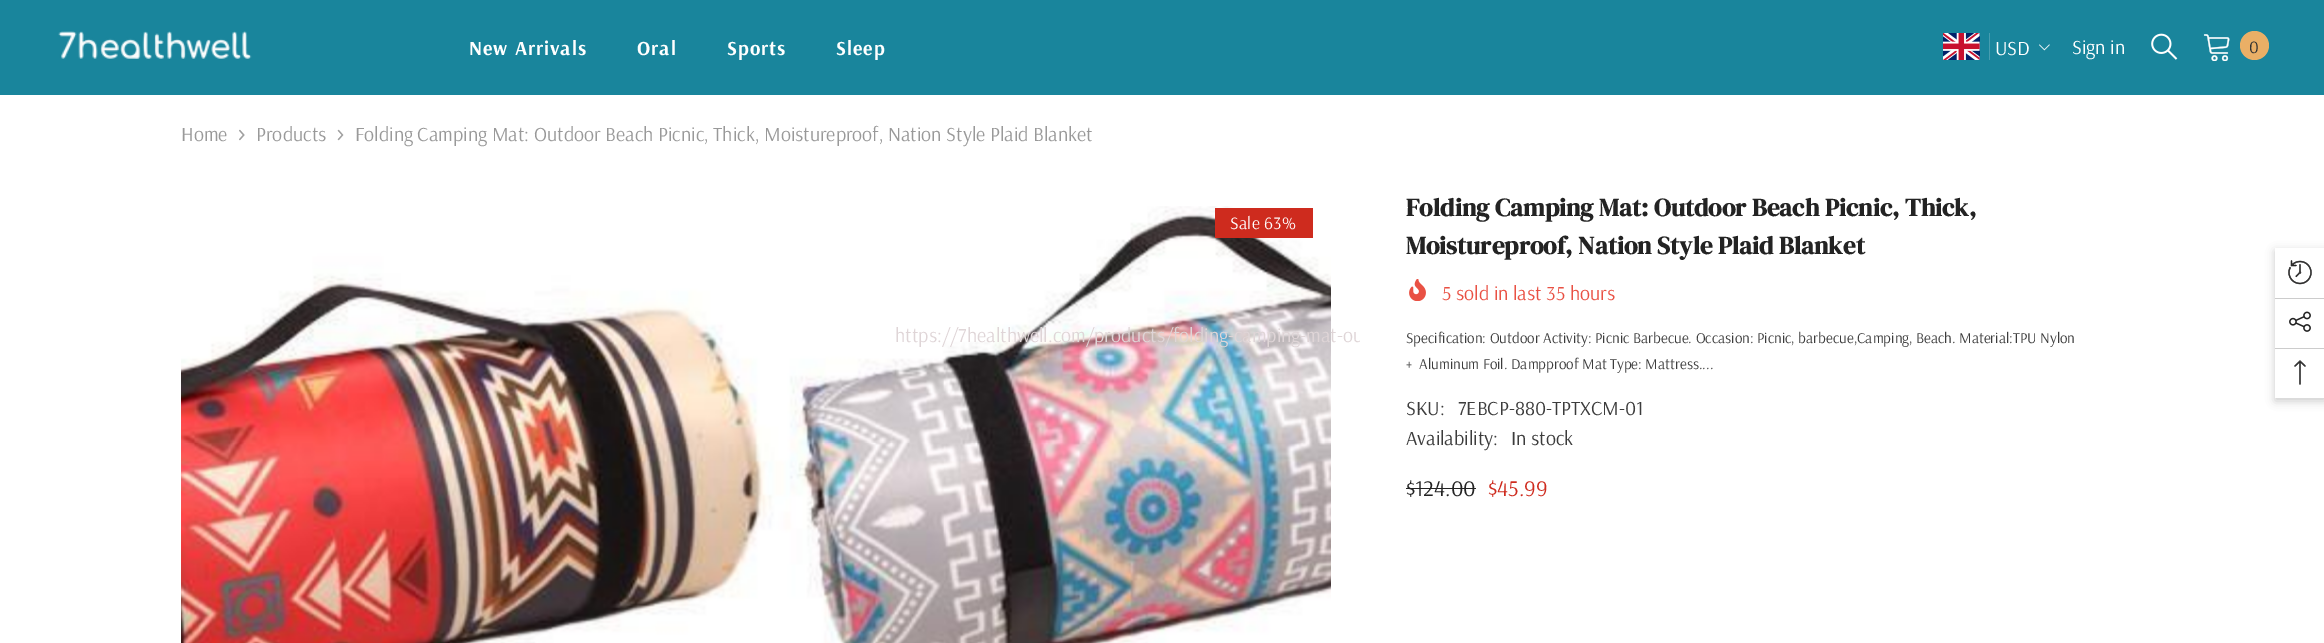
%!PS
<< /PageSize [2324 643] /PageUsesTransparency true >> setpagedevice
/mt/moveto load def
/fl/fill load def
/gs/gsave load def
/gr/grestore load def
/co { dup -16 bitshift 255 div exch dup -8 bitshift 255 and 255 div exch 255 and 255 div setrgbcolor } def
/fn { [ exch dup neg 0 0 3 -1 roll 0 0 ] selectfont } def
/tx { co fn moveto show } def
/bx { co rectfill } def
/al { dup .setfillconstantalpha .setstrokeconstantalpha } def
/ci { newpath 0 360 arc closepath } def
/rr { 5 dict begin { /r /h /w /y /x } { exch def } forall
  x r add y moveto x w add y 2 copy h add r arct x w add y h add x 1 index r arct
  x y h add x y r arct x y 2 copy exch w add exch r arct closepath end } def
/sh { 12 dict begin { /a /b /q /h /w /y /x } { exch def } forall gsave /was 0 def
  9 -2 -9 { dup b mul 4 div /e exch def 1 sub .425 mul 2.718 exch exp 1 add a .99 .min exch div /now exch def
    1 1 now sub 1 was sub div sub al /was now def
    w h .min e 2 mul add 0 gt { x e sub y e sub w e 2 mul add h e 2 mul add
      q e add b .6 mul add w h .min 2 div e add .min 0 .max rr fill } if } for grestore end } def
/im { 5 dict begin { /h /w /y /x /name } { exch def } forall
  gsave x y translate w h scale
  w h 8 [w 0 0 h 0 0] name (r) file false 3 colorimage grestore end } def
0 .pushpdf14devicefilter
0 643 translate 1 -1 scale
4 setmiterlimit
0 0 2324 643 16#FFFFFF bx
0 0 2324 95 16#19859C bx
(media/1.raw) 58 31 194 28 im
(media/2.raw) 1943 33 37 27 im
1989 33 1 27 16#479DB0 bx
(media/3.raw) 2039 44 11 7 im
(media/4.raw) 2151 33 27 27 im
(media/5.raw) 2203 34 27 27 im
16#EAAF66 co
2254.5 45.5 14.5 ci fl
(media/6.raw) 239 129 6 12 im
(media/7.raw) 337 129 7 12 im
(media/8.raw) 1409 279 17 22 im
1406 488 70 1 16#232323 bx
(media/9.raw) 181 206 1150 437 im
1215 208 98 30 16#CE2B1E bx
16#000000 co
2275 251 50 150 0 4.5 .2 sh
2275 248 49 150 16#FFFFFF bx
(media/10.raw) 2288 260 24 25 im
2275 298 49 1 16#CCCCCC bx
(media/11.raw) 2289 311 22 21 im
2275 348 49 1 16#CCCCCC bx
(media/12.raw) 2294 360 12 25 im
/Arsenal-Bold 20 fn
16#FFFFFF co
469 55 mt 1 0 (New Arrivals) ashow
637 55 mt 1 0 (Oral) ashow
727 55 mt 1 0 (Sports) ashow
836 55 mt 1 0 (Sleep) ashow
(USD) 1995 55 /Arsenal-Regular 20 16#FFFFFF tx
(Sign in) 2072 54 /Arsenal-Regular 20 16#FFFFFF tx
(0) 2249 53 /Arsenal-Regular 17.5 16#323232 tx
(Home) 181 141 /Arsenal-Regular 20 16#999999 tx
(Products) 256 141 /Arsenal-Regular 20 16#999999 tx
(Folding Camping Mat: Outdoor Beach Picnic, Thick, Moistureproof, Nation Style Plaid Blanket) 355 141 /Arsenal-Regular 20 16#999999 tx
(Folding Camping Mat: Outdoor Beach Picnic, Thick,) 1406 216 /DMSerifDisplay-Bold 25 16#232323 tx
(Moistureproof, Nation Style Plaid Blanket) 1406 254 /DMSerifDisplay-Bold 25 16#232323 tx
(5 sold in last 35 hours) 1442 300 /Arsenal-Regular 20 16#E95144 tx
gs
895 321 465 28 rectclip
(https://7healthwell.com/products/folding-camping-mat-ou) 895 342 /Arsenal-Regular 20 16#DFD5D7 tx
gr
(Specification: Outdoor Activity: Picnic Barbecue. Occasion: Picnic, barbecue,Camping, Beach. Material:TPU Nylon) 1406 343 /Arsenal-Regular 15 16#3C3C3C tx
(+  Aluminum Foil. Dampproof Mat Type: Mattress....) 1406 369 /Arsenal-Regular 15 16#3C3C3C tx
(SKU:) 1406 415 /Arsenal-Regular 20 16#3C3C3C tx
(7EBCP-880-TPTXCM-01) 1458 415 /Arsenal-Regular 20 16#3C3C3C tx
(Availability:) 1406 445 /Arsenal-Regular 20 16#3C3C3C tx
(In stock) 1511 445 /Arsenal-Regular 20 16#3C3C3C tx
($124.00) 1406 496 /Arsenal-Regular 22.5 16#232323 tx
($45.99) 1488 496 /Arsenal-Regular 22.5 16#CE2B1E tx
/Arsenal-Regular 17.5 fn
16#FFFFFF co
1230 229 mt .25 0 (Sale 63%) ashow
.poppdf14devicefilter showpage
